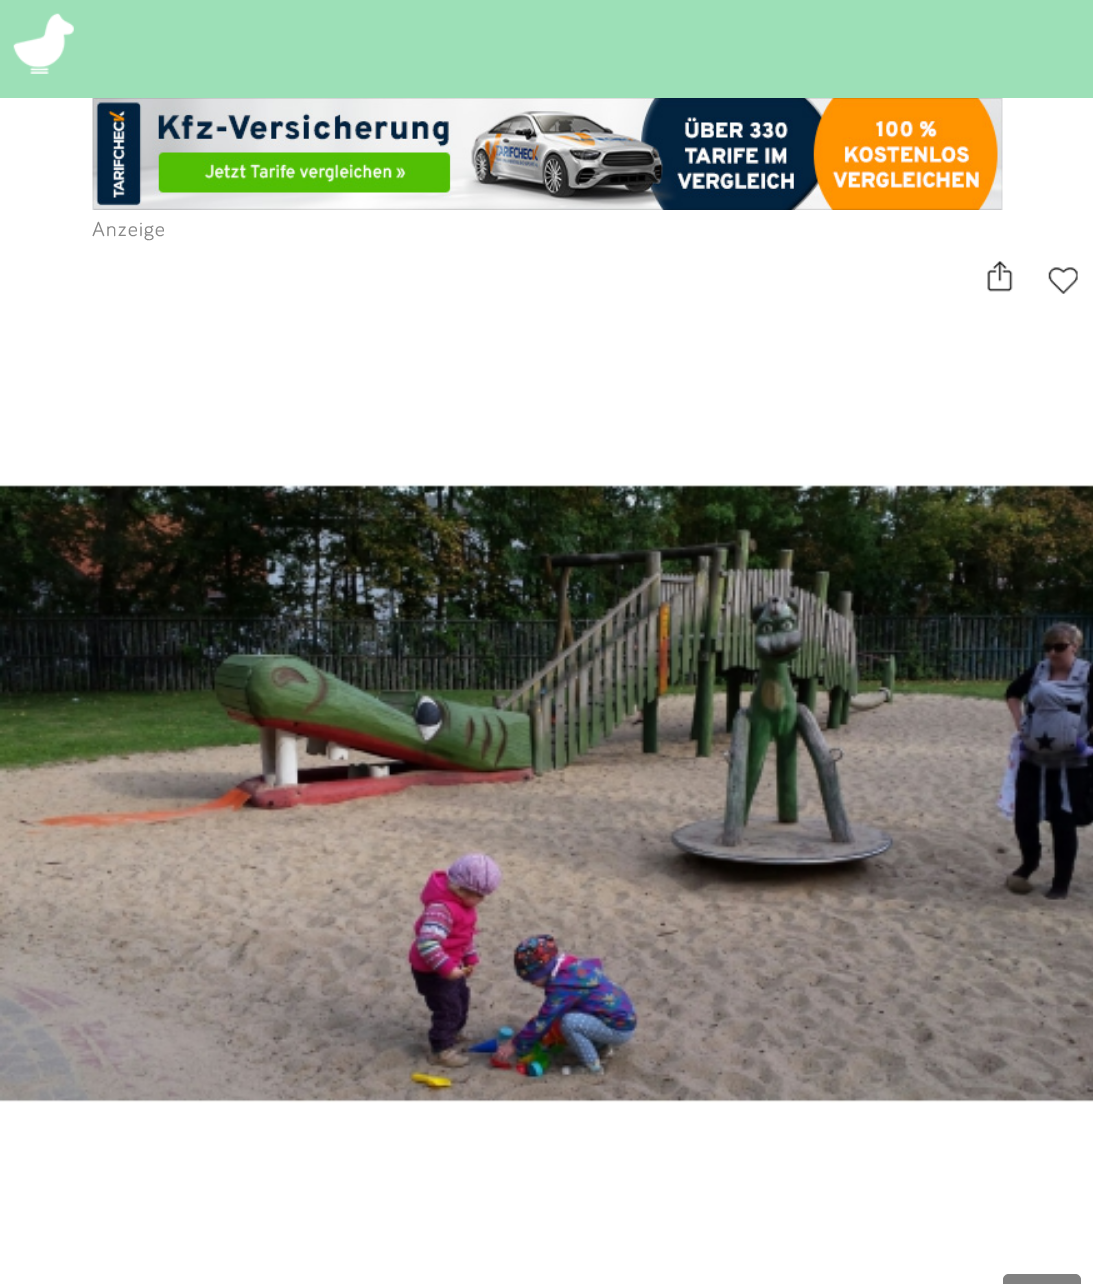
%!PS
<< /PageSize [1093 1284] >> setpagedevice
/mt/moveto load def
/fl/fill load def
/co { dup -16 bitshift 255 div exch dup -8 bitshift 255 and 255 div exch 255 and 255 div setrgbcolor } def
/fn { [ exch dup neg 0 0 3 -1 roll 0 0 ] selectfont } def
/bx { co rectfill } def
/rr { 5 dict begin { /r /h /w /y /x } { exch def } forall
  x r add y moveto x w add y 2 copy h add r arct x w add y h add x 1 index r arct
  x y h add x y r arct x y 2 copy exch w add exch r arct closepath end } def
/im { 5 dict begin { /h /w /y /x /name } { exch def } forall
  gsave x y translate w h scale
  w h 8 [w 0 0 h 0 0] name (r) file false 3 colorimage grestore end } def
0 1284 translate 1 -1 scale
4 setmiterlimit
0 0 1093 1284 16#FFFFFF bx
0 0 1093 98 16#9CE0B7 bx
(media/1.raw) 13 13 61 61 im
(media/2.raw) 92 98 911 112 im
(media/3.raw) 987 261 26 31 im
(media/4.raw) 1048 267 30 27 im
(media/5.raw) 0 483 1093 620 im
16#818181 co
1003 1274 78 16 6 rr fl
/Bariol-Regular 21 fn
16#878787 co
92 236 mt 1.25 0 (Anzeige) ashow
showpage
